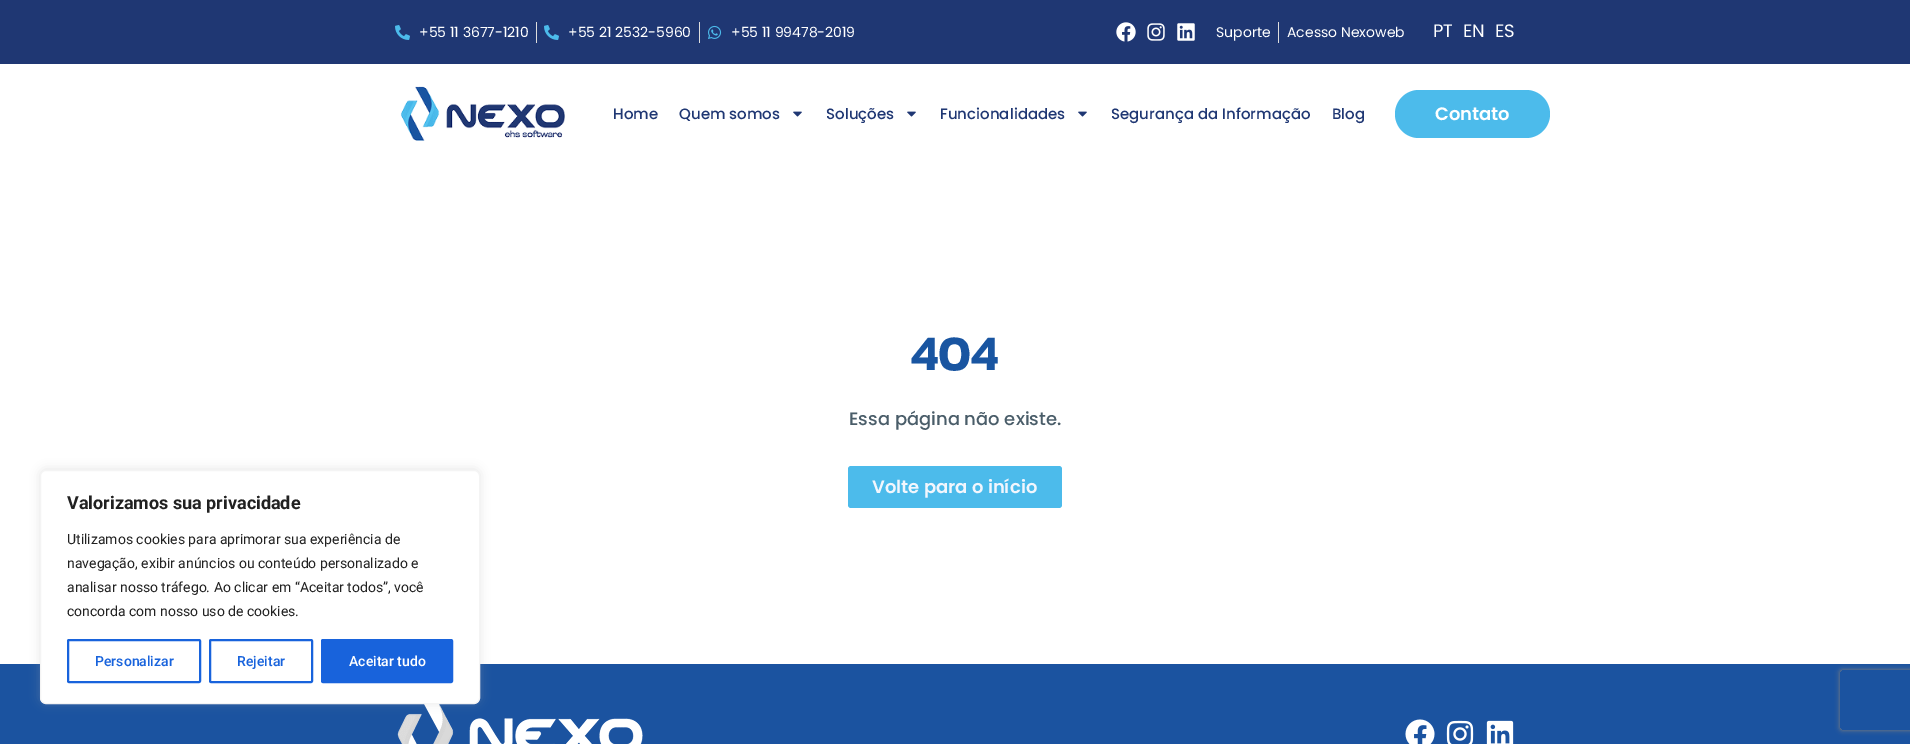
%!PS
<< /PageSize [1910 744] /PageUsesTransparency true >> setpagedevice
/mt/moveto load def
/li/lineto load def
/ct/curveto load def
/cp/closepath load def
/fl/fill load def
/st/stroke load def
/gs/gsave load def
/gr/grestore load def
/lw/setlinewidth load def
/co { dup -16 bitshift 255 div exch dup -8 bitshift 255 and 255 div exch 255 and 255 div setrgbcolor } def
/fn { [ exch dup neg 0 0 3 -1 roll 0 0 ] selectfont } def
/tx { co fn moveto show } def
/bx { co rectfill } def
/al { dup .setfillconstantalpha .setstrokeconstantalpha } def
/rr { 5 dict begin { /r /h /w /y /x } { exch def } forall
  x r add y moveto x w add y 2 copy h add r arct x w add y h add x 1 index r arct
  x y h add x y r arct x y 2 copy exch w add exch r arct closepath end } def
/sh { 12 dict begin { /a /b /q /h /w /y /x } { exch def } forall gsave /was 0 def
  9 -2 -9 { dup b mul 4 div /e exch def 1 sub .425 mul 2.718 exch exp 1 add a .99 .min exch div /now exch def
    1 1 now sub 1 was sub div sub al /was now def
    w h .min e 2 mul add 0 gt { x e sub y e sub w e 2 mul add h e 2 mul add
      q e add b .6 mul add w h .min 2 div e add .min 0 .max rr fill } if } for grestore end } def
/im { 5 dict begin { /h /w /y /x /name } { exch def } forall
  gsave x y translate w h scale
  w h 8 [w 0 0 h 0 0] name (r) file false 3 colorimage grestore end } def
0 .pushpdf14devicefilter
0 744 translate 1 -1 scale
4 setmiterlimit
0 0 1910 744 16#FFFFFF bx
0 0 1910 64 16#1F3773 bx
(media/1.raw) 395 25 15 15 im
536 22 1 21 16#DDDDDD bx
(media/1.raw) 544 25 15 15 im
699 22 1 21 16#DDDDDD bx
(media/2.raw) 708 25 14 14 im
(media/3.raw) 1116 22 20 20 im
(media/4.raw) 1147 23 18 18 im
(media/5.raw) 1177 23 18 18 im
1278 22 1 21 16#DDDDDD bx
(media/6.raw) 400 86 165 55 im
(media/7.raw) 793 111 9 6 im
(media/7.raw) 907 111 9 6 im
(media/7.raw) 1078 111 9 6 im
16#4CBBEB co
1395 90 155 48 24 rr fl
848 466 214 42 3 rr fl
0 664 1910 80 16#1B53A0 bx
(media/8.raw) 397 704 246 40 im
16#ACABAB co
40 469 440 234 6 5 .3 sh
16#FFFFFF co
40.5 470.5 439 233 5.5 rr gs fl gr
16#F4F4F4 co
st
16#1863DC co
2 lw
68 640 132 42 1 rr st
210 640 102 42 1 rr st
322 640 130 42 1 rr gs fl gr
st
gs
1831 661 mt 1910 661 li 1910 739 li 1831 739 li cp 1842 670 mt 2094 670 li 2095 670 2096 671 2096 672 ct 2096 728 li 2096 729 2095 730 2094 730 ct 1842 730 li 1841 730 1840 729 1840 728 ct 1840 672 li 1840 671 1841 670 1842 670 ct cp eoclip newpath
16#808080 co
1840 670 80 60 2 2.5 1 sh
gr
(media/9.raw) 1405 719 30 25 im
(media/10.raw) 1446 720 28 24 im
(media/11.raw) 1486 720 28 24 im
(+55 11 3677-1210) 419 37 /Poppins-Regular 14 16#FFFFFF tx
(+55 21 2532-5960) 568 37 /Poppins-Regular 14 16#FFFFFF tx
(+55 11 99478-2019) 731 37 /Poppins-Regular 14 16#FFFFFF tx
(Suporte) 1216 37 /Poppins-Regular 14 16#FFFFFF tx
(Acesso Nexoweb) 1287 37 /Poppins-Regular 14 16#FFFFFF tx
(PT) 1433 37 /Poppins-Regular 18 16#FFFFFF tx
(EN) 1463 37 /Poppins-Regular 18 16#FFFFFF tx
(ES) 1495 37 /Poppins-Regular 18 16#FFFFFF tx
(Home) 613 119 /Poppins-Medium 15 16#1F3773 tx
(Quem somos) 679 119 /Poppins-Medium 15 16#1F3773 tx
(Soluções) 826 119 /Poppins-Medium 15 16#1F3773 tx
(Funcionalidades) 940 119 /Poppins-Medium 15 16#1F3773 tx
(Segurança da Informação) 1111 119 /Poppins-Medium 15 16#1F3773 tx
(Blog) 1332 119 /Poppins-Medium 15 16#1F3773 tx
(Contato) 1435 120 /Poppins-SemiBold 18 16#FFFFFF tx
(404) 911 370 /Kanit-SemiBold 50 16#1955A1 tx
(Essa página não existe.) 849 425 /Poppins-Medium 18 16#4A5D69 tx
(Volte para o início) 872 493 /Poppins-SemiBold 18 16#F2F6FD tx
(Valorizamos sua privacidade) 67 509 /Roboto-Bold 18 16#212121 tx
(Utilizamos cookies para aprimorar sua experiência de) 67 544 /Roboto-Regular 14 16#212121 tx
(navegação, exibir anúncios ou conteúdo personalizado e) 67 568 /Roboto-Regular 14 16#212121 tx
(analisar nosso tráfego. Ao clicar em “Aceitar todos”, você) 67 592 /Roboto-Regular 14 16#212121 tx
(concorda com nosso uso de cookies.) 67 616 /Roboto-Regular 14 16#212121 tx
(Personalizar) 95 666 /Roboto-Medium 14 16#1863DC tx
(Rejeitar) 237 666 /Roboto-Medium 14 16#1863DC tx
(Aceitar tudo) 349 666 /Roboto-Medium 14 16#FFFFFF tx
.poppdf14devicefilter showpage
